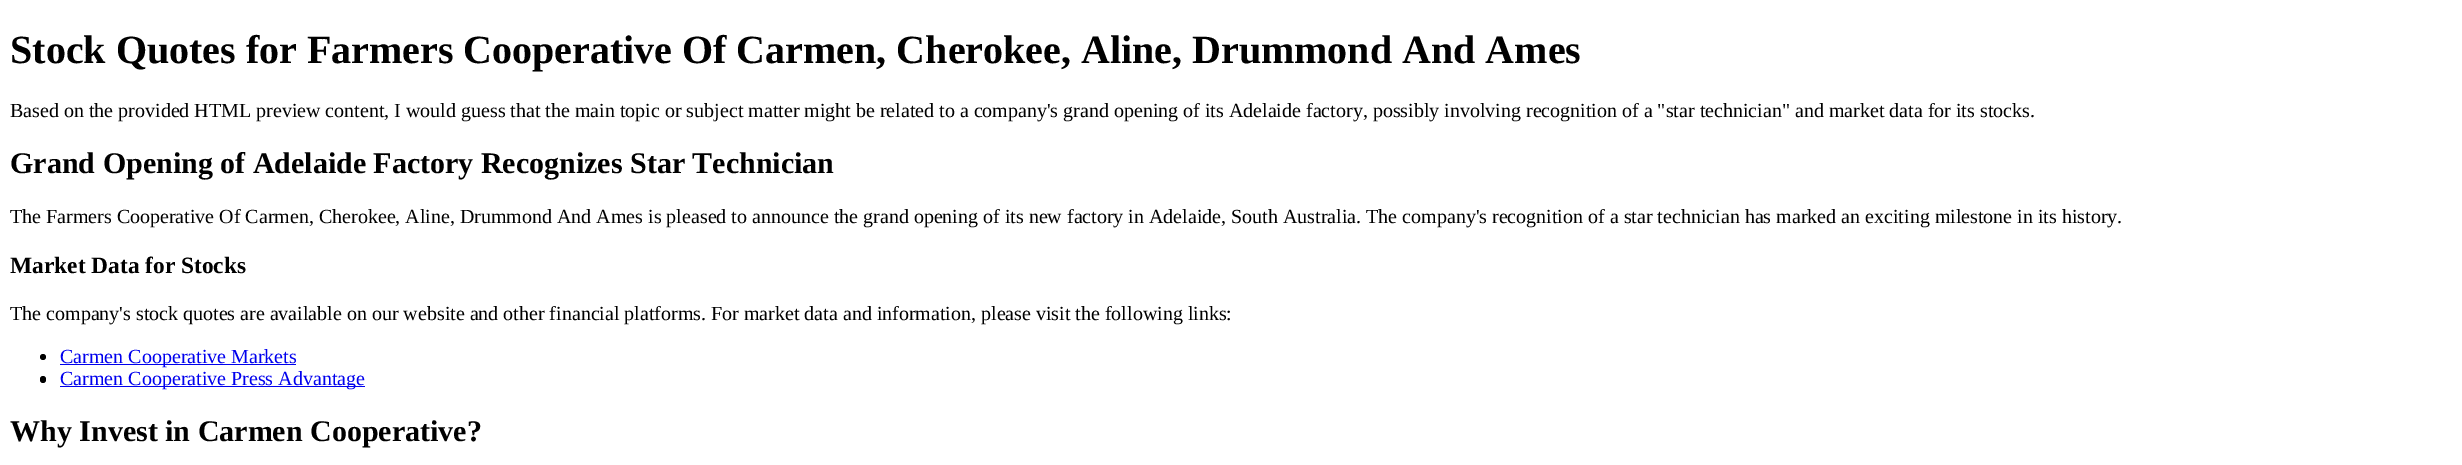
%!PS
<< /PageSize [2462 465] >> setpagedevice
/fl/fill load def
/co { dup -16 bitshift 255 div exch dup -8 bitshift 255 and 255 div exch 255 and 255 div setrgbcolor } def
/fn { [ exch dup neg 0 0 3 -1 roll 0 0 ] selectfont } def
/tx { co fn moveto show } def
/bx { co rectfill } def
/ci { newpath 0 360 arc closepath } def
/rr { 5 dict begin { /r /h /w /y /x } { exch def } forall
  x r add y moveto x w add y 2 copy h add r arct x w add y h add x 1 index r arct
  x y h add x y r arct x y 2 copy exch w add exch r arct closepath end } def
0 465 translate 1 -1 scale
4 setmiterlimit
0 0 2462 465 16#FFFFFF bx
16#000000 co
43 357 3 ci fl
60 364 236 1 16#0000EE bx
16#000000 co
40 376 6 7 3 rr fl
60 386 305 1 16#0000EE bx
(Stock Quotes for Farmers Cooperative Of Carmen, Cherokee, Aline, Drummond And Ames) 10 63 /LiberationSerif-Bold 40 16#000000 tx
(Based on the provided HTML preview content, I would guess that the main topic or subject matter might be related to a company's grand opening of its Adelaide factory, possibly involving recognition of a "star technician" and market data for its stocks.) 10 117 /LiberationSerif-Regular 20 16#000000 tx
(Grand Opening of Adelaide Factory Recognizes Star Technician) 10 173 /LiberationSerif-Bold 30 16#000000 tx
(The Farmers Cooperative Of Carmen, Cherokee, Aline, Drummond And Ames is pleased to announce the grand opening of its new factory in Adelaide, South Australia. The company's recognition of a star technician has marked an exciting milestone in its history.) 10 223 /LiberationSerif-Regular 20 16#000000 tx
(Market Data for Stocks) 10 273 /LiberationSerif-Bold 23.4 16#000000 tx
(The company's stock quotes are available on our website and other financial platforms. For market data and information, please visit the following links:) 10 320 /LiberationSerif-Regular 20 16#000000 tx
(Carmen Cooperative Markets) 60 363 /LiberationSerif-Regular 20 16#0000EE tx
(Carmen Cooperative Press Advantage) 60 385 /LiberationSerif-Regular 20 16#0000EE tx
(Why Invest in Carmen Cooperative?) 10 441 /LiberationSerif-Bold 30 16#000000 tx
showpage
